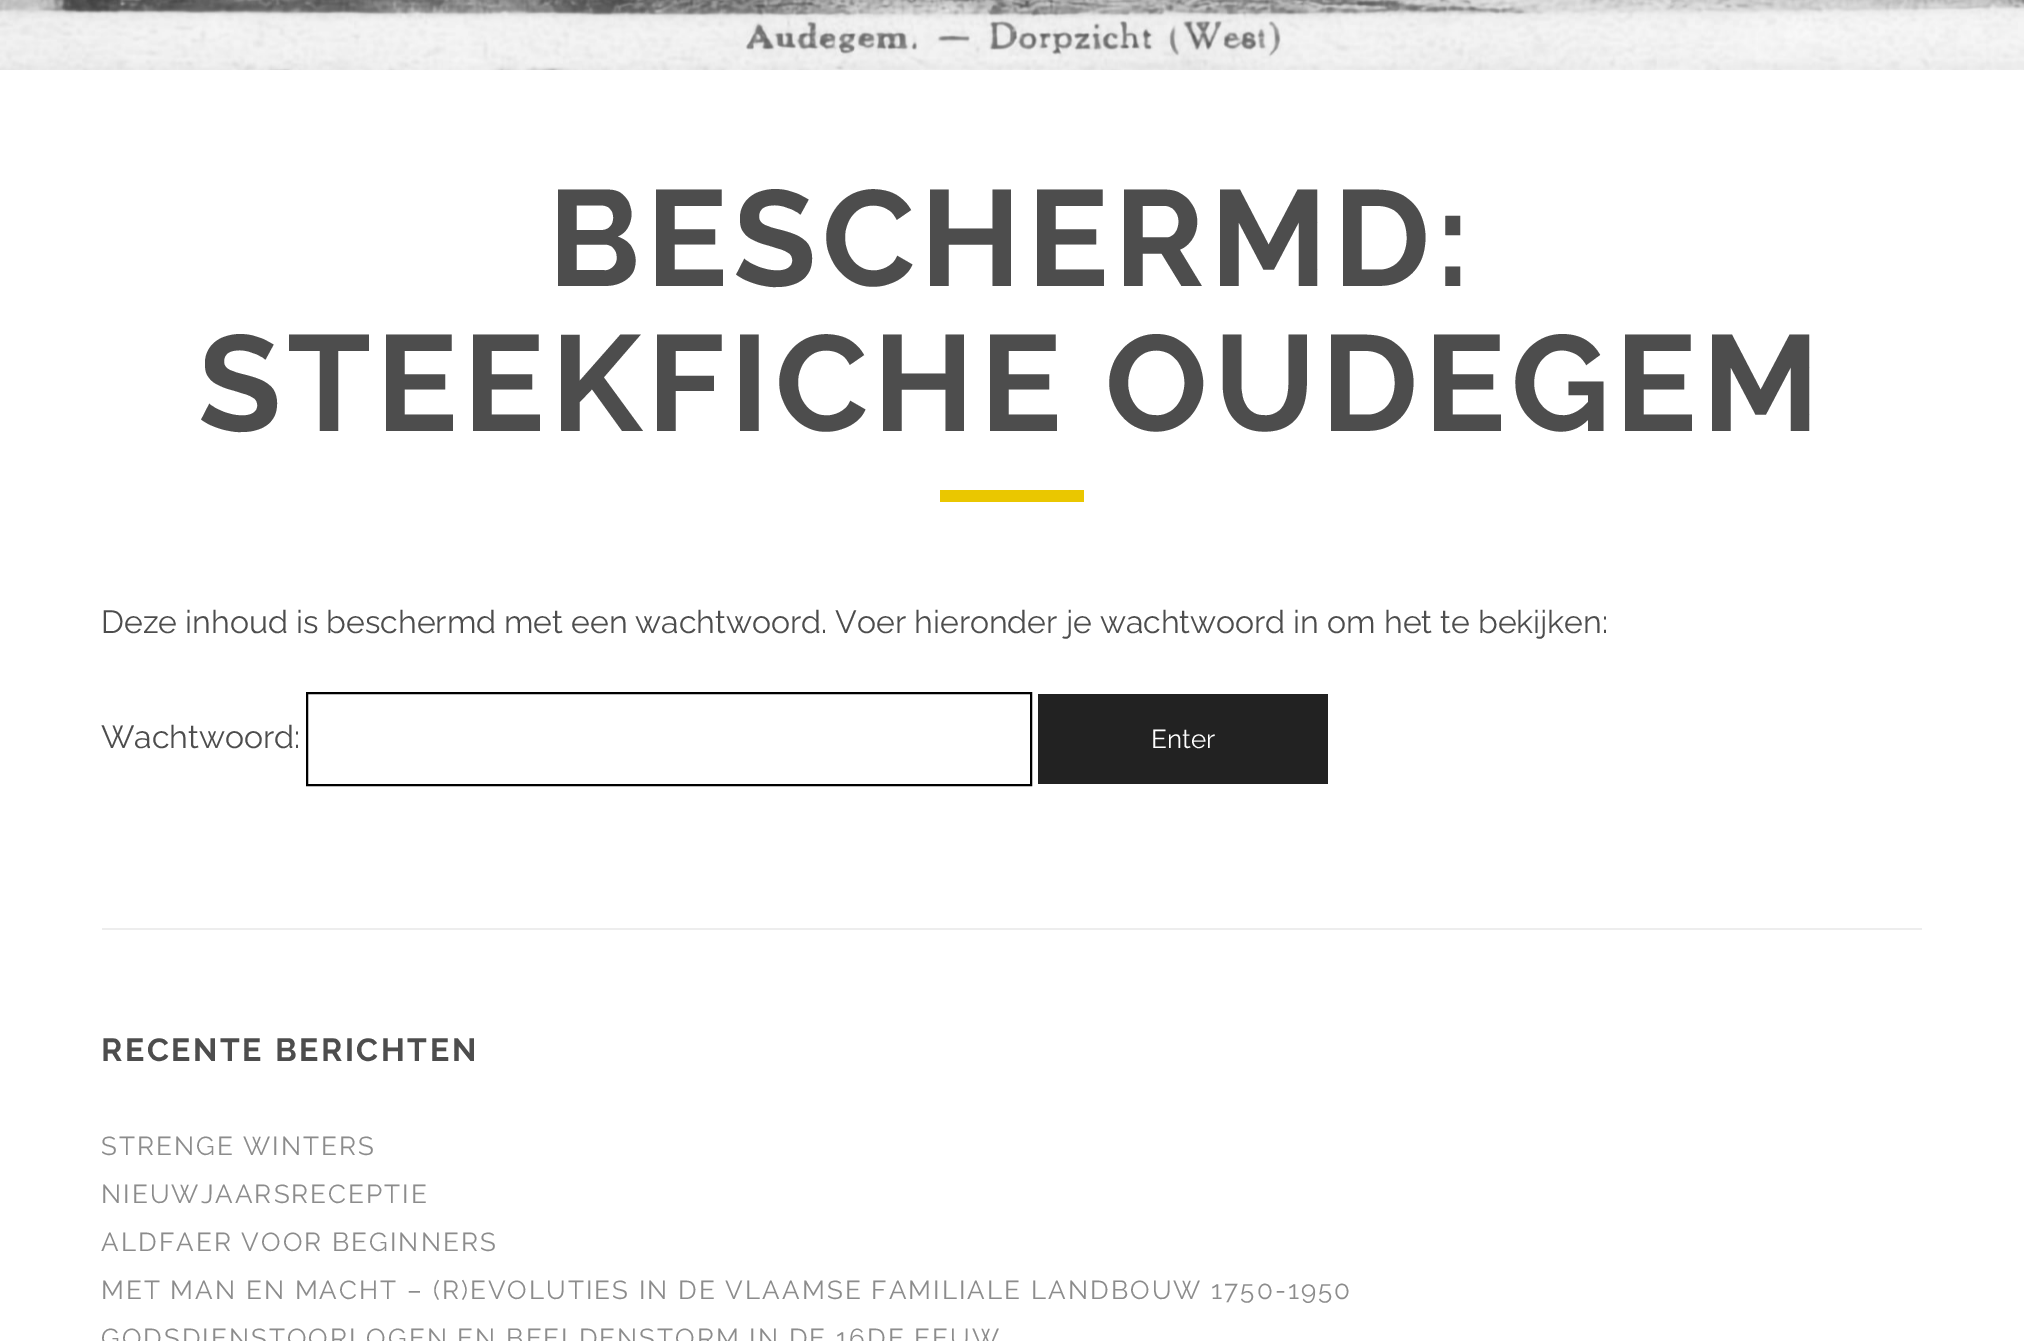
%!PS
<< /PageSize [2024 1341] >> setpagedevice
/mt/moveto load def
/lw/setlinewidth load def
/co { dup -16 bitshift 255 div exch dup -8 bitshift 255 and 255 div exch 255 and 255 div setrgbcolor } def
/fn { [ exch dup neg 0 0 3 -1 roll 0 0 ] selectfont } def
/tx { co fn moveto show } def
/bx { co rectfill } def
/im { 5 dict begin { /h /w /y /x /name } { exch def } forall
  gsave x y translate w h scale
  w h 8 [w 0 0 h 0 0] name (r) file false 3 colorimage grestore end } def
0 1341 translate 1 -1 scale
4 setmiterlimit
0 0 2024 1341 16#FFFFFF bx
(media/1.raw) 0 0 2024 70 im
940 490 144 12 16#EAC700 bx
16#000000 co
2 lw
307 693 724 92 rectstroke
1038 694 290 90 16#222222 bx
102 928 1820 2 16#EDEDED bx
/Raleway-Bold 136 fn
16#4D4D4D co
548 286 mt 5.4 0 (BESCHERMD:) ashow
198 431 mt 5.4 0 (STEEKFICHE OUDEGEM) ashow
(Deze inhoud is beschermd met een wachtwoord. Voer hieronder je wachtwoord in om het te bekijken:) 101 633 /Raleway-Regular 32 16#4D4D4D tx
(Wachtwoord:) 101 748 /Raleway-Regular 32 16#4D4D4D tx
(Enter) 1151 748 /Raleway-Regular 26 16#FFFFFF tx
/Raleway-Bold 32 fn
16#4D4D4D co
101 1061 mt 2.6 0 (RECENTE BERICHTEN) ashow
/Raleway-Regular 26 fn
16#8C8C8C co
101 1155 mt 2.08 0 (STRENGE WINTERS) ashow
101 1203 mt 2.08 0 (NIEUWJAARSRECEPTIE) ashow
101 1251 mt 2.08 0 (ALDFAER VOOR BEGINNERS) ashow
101 1299 mt 2.08 0 (MET MAN EN MACHT – \(R\)EVOLUTIES IN DE VLAAMSE FAMILIALE LANDBOUW 1750-1950) ashow
101 1347 mt 2.08 0 (GODSDIENSTOORLOGEN EN BEELDENSTORM IN DE 16DE EEUW) ashow
showpage
